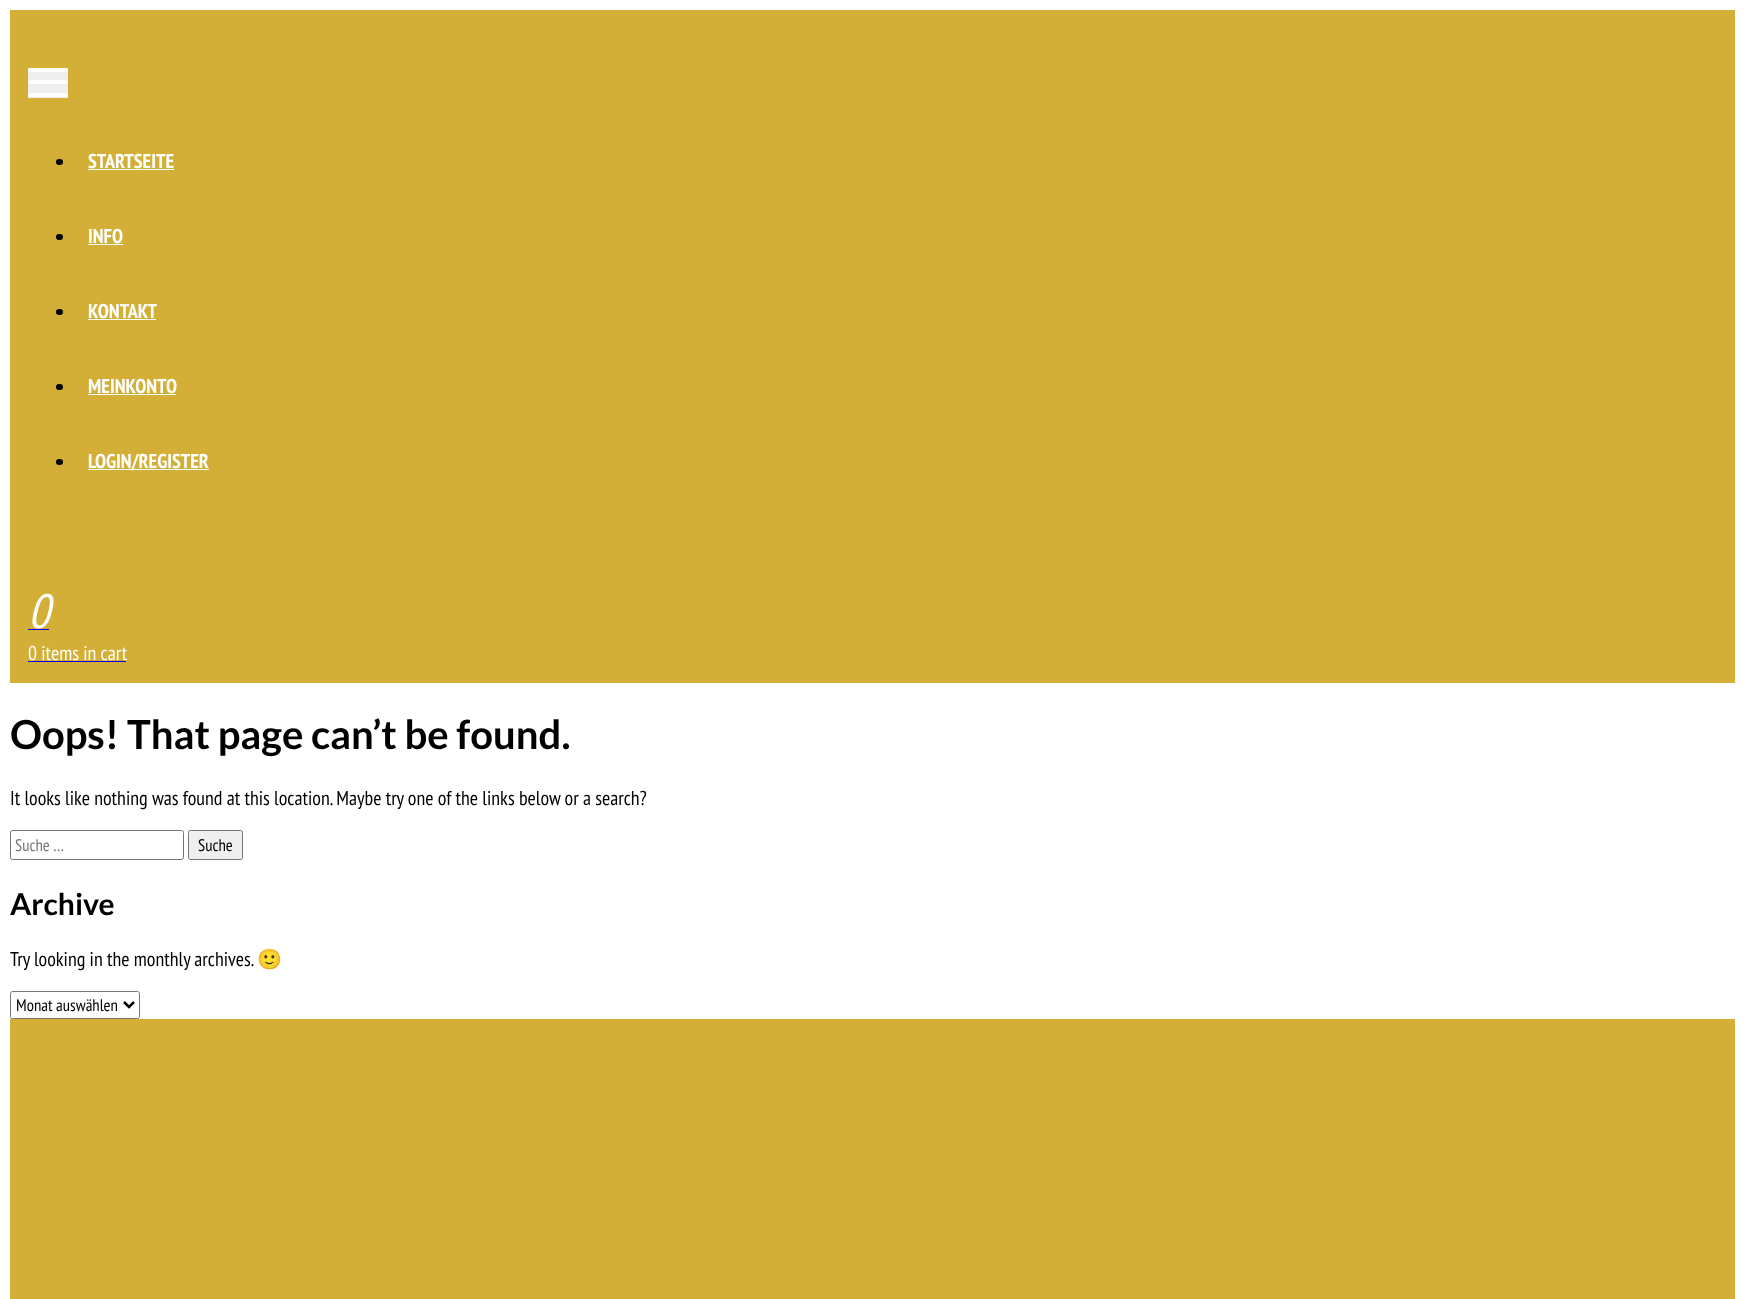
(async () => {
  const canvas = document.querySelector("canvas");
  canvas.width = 1744;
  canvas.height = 1299;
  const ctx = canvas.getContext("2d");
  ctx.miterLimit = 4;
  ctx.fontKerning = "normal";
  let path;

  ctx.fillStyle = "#ffffff";
  ctx.fillRect(0, 0, 1744, 1299);
  ctx.fillStyle = "#d3af37";
  ctx.fillRect(10, 10, 1725, 673);
  ctx.fillStyle = "#efefef";
  ctx.fillRect(28, 68, 40, 30);
  ctx.fillStyle = "#ffffff";
  ctx.beginPath();
  ctx.roundRect(28, 68, 40, 4, 2);
  ctx.fill();
  ctx.beginPath();
  ctx.roundRect(28, 80, 40, 4, 2);
  ctx.fill();
  ctx.beginPath();
  ctx.roundRect(28, 93, 40, 4, 2);
  ctx.fill();
  ctx.fillStyle = "#000000";
  ctx.beginPath();
  ctx.roundRect(56, 159, 7, 6, 3);
  ctx.fill();
  ctx.fillStyle = "#ffffff";
  ctx.fillRect(88, 169, 86, 1);
  ctx.fillStyle = "#000000";
  ctx.beginPath();
  ctx.roundRect(56, 234, 7, 6, 3);
  ctx.fill();
  ctx.fillStyle = "#ffffff";
  ctx.fillRect(88, 244, 35, 1);
  ctx.fillStyle = "#000000";
  ctx.beginPath();
  ctx.roundRect(56, 309, 7, 6, 3);
  ctx.fill();
  ctx.fillStyle = "#ffffff";
  ctx.fillRect(88, 319, 68, 1);
  ctx.fillStyle = "#000000";
  ctx.beginPath();
  ctx.roundRect(56, 384, 7, 6, 3);
  ctx.fill();
  ctx.fillStyle = "#ffffff";
  ctx.fillRect(88, 394, 88, 1);
  ctx.fillStyle = "#000000";
  ctx.beginPath();
  ctx.roundRect(56, 459, 7, 6, 3);
  ctx.fill();
  for (const [x, y, w, h, color] of [
    [88, 469, 121, 1, "#ffffff"],
    [28, 629, 21, 1, "#0000ee"],
    [28, 661, 98, 1, "#0000ee"],
  ]) {
    ctx.fillStyle = color;
    ctx.fillRect(x, y, w, h);
  }
  ctx.beginPath();
  ctx.roundRect(10.5, 830.5, 173, 29, 2);
  ctx.strokeStyle = "#767676";
  ctx.stroke();
  ctx.fillStyle = "#efefef";
  ctx.beginPath();
  ctx.roundRect(188.5, 830.5, 54, 29, 2);
  ctx.fill();
  ctx.stroke();
  ctx.beginPath();
  ctx.roundRect(10.5, 991.5, 129, 27, 2);
  ctx.stroke();
  path = new Path2D("M124 1002L129 1007L134 1002");
  ctx.strokeStyle = "#000000";
  ctx.lineWidth = 2.5;
  ctx.stroke(path);
  ctx.fillStyle = "#d3af37";
  ctx.fillRect(10, 1019, 1725, 280);
  ctx.font = "bold 20px PT Sans Narrow";
  ctx.fillStyle = "#ffffff";
  for (const [text, x, y] of [
    ["STARTSEITE", 88, 168],
    ["INFO", 88, 243],
    ["KONTAKT", 88, 318],
    ["MEINKONTO", 88, 393],
    ["LOGIN/REGISTER", 88, 468],
  ]) {
    ctx.fillText(text, x, y);
  }
  ctx.font = "italic 48px PT Sans Narrow";
  ctx.fillText("0", 28, 628);
  ctx.font = "20px PT Sans Narrow";
  ctx.fillText("0 items in cart", 28, 660);
  ctx.font = "bold 40px Lato";
  ctx.fillStyle = "#000000";
  ctx.fillText("Oops! That page can’t be found.", 10, 749);
  ctx.font = "20px PT Sans Narrow";
  ctx.fillText("It looks like nothing was found at this location. Maybe try one of the links below or a search?", 10, 805);
  ctx.font = "16.75px PT Sans Narrow";
  ctx.fillStyle = "#757575";
  ctx.fillText("Suche …", 15, 851);
  ctx.fillStyle = "#000000";
  ctx.fillText("Suche", 198, 851);
  ctx.font = "bold 30px Lato";
  ctx.fillText("Archive", 10, 915);
  ctx.font = "20px PT Sans Narrow";
  ctx.fillText("Try looking in the monthly archives.", 10, 966);
  ctx.font = "20px Noto Color Emoji";
  ctx.fillText("🙂", 257, 966);
  ctx.font = "16.75px PT Sans Narrow";
  ctx.fillText("Monat auswählen", 16, 1011);
})();
